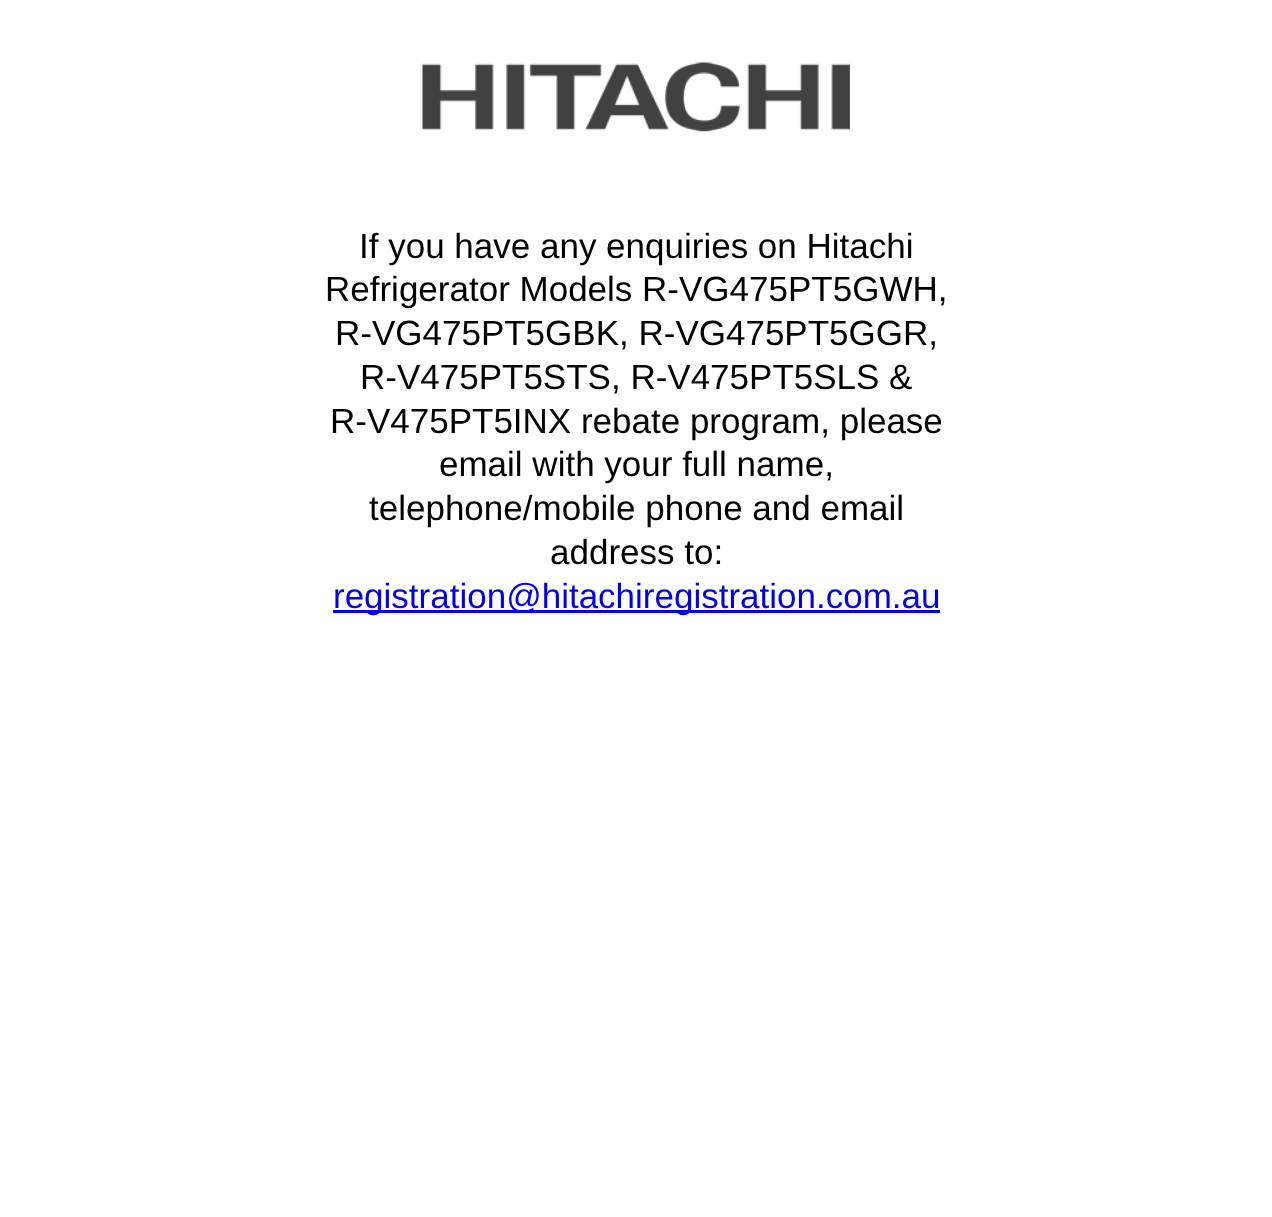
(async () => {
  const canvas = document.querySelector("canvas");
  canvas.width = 1272;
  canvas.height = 1217;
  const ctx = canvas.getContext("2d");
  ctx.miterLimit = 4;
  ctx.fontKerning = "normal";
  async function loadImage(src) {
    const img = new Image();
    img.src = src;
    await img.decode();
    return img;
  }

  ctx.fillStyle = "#ffffff";
  ctx.fillRect(0, 0, 1272, 1217);
  ctx.drawImage(await loadImage("img/1.png"), 422, 62, 428, 70);
  ctx.fillStyle = "#0000ee";
  ctx.fillRect(333, 610, 607, 3);
  ctx.font = "35px Liberation Sans";
  ctx.fillStyle = "#000000";
  for (const [text, x, y] of [
    ["If you have any enquiries on Hitachi", 359, 258],
    ["Refrigerator Models R-VG475PT5GWH,", 325, 301],
    ["R-VG475PT5GBK, R-VG475PT5GGR,", 335, 345],
    ["R-V475PT5STS, R-V475PT5SLS &", 360, 389],
    ["R-V475PT5INX rebate program, please", 330, 433],
    ["email with your full name,", 439, 476],
    ["telephone/mobile phone and email", 369, 520],
    ["address to:", 550, 564],
  ]) {
    ctx.fillText(text, x, y);
  }
  ctx.fillStyle = "#0000ee";
  ctx.fillText("registration@hitachiregistration.com.au", 333, 608);
})();
